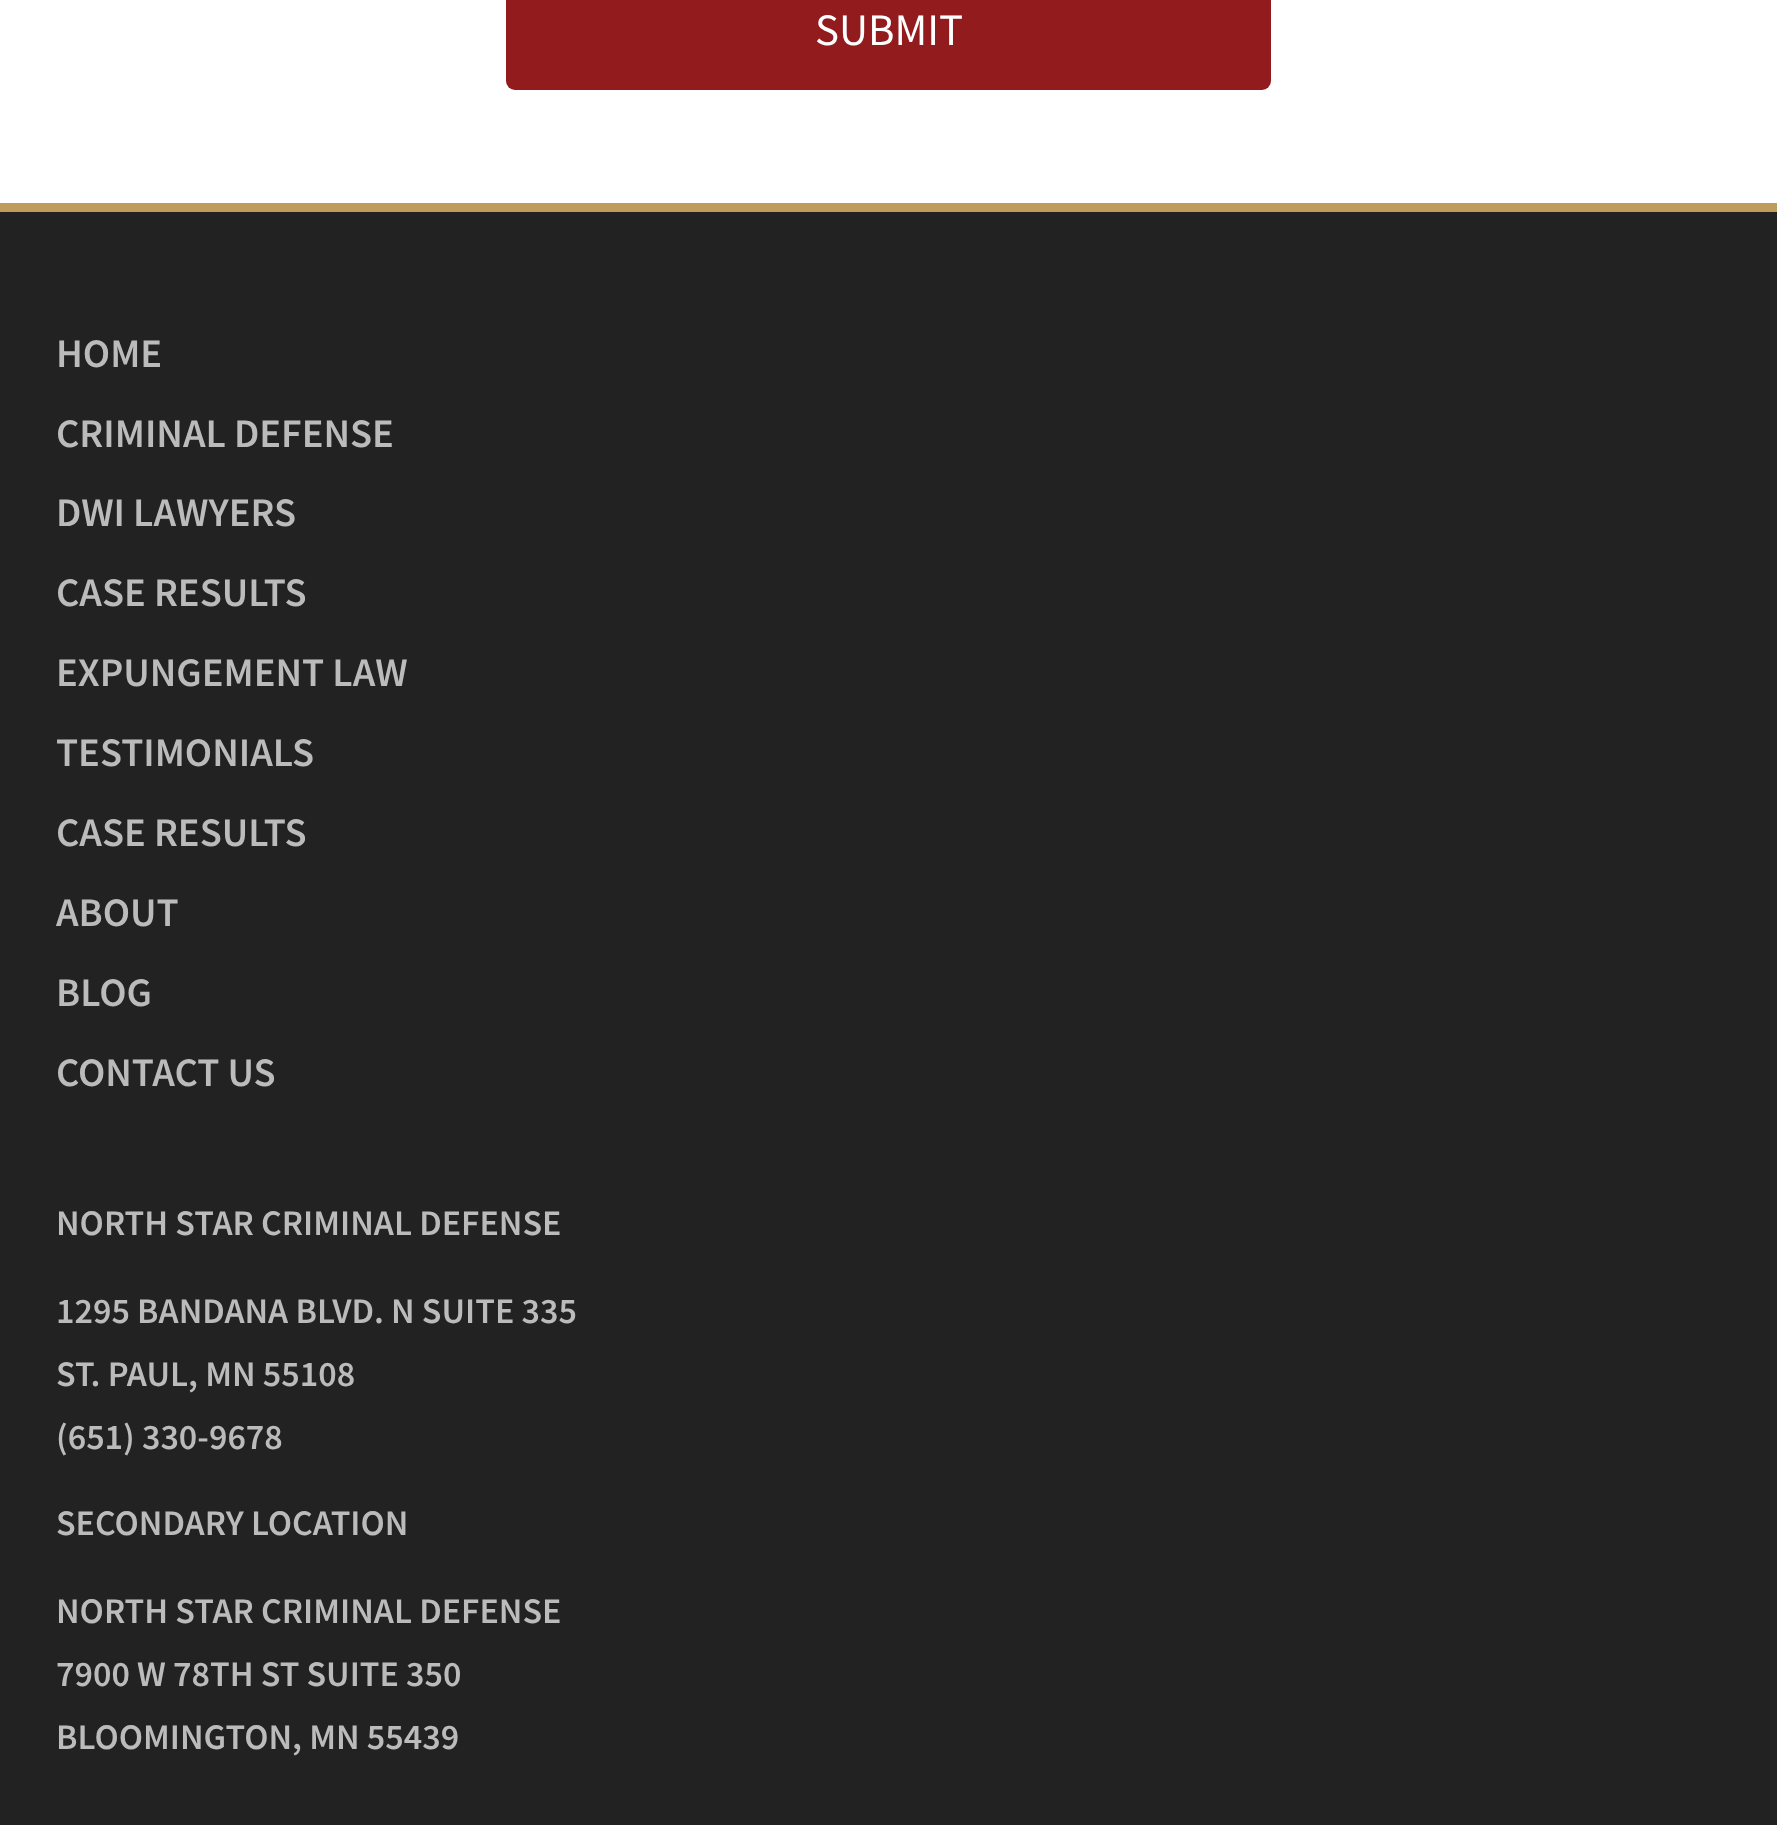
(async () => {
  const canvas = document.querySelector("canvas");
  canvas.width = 1777;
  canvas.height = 1825;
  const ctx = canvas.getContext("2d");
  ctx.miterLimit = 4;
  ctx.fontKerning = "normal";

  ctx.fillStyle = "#ffffff";
  ctx.fillRect(0, 0, 1777, 1825);
  ctx.fillStyle = "#921b1d";
  ctx.beginPath();
  ctx.roundRect(506, -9, 765, 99, 9);
  ctx.fill();
  ctx.fillStyle = "#222222";
  ctx.fillRect(0, 212, 1777, 1613);
  ctx.fillStyle = "#bf9c5e";
  ctx.fillRect(0, 203, 1777, 9);
  ctx.font = "45px Source Sans Pro";
  ctx.fillStyle = "#ffffff";
  ctx.fillText("SUBMIT", 815, 45);
  ctx.font = "600 40.5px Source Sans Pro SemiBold";
  ctx.fillStyle = "#bbbbbb";
  for (const [text, x, y] of [
    ["HOME", 56, 367],
    ["CRIMINAL DEFENSE", 56, 447],
    ["DWI LAWYERS", 56, 526],
    ["CASE RESULTS", 56, 606],
    ["EXPUNGEMENT LAW", 56, 686],
    ["TESTIMONIALS", 56, 766],
    ["CASE RESULTS", 56, 846],
    ["ABOUT", 56, 926],
    ["BLOG", 56, 1006],
    ["CONTACT US", 56, 1086],
  ]) {
    ctx.fillText(text, x, y);
  }
  ctx.font = "600 36px Source Sans Pro SemiBold";
  for (const [text, x, y] of [
    ["NORTH STAR CRIMINAL DEFENSE", 56, 1235],
    ["1295 BANDANA BLVD. N SUITE 335", 56, 1323],
    ["ST. PAUL, MN 55108", 56, 1386],
    ["(651) 330-9678", 56, 1449],
    ["SECONDARY LOCATION", 56, 1535],
    ["NORTH STAR CRIMINAL DEFENSE", 56, 1623],
    ["7900 W 78TH ST SUITE 350", 56, 1686],
    ["BLOOMINGTON, MN 55439", 56, 1749],
  ]) {
    ctx.fillText(text, x, y);
  }
})();
